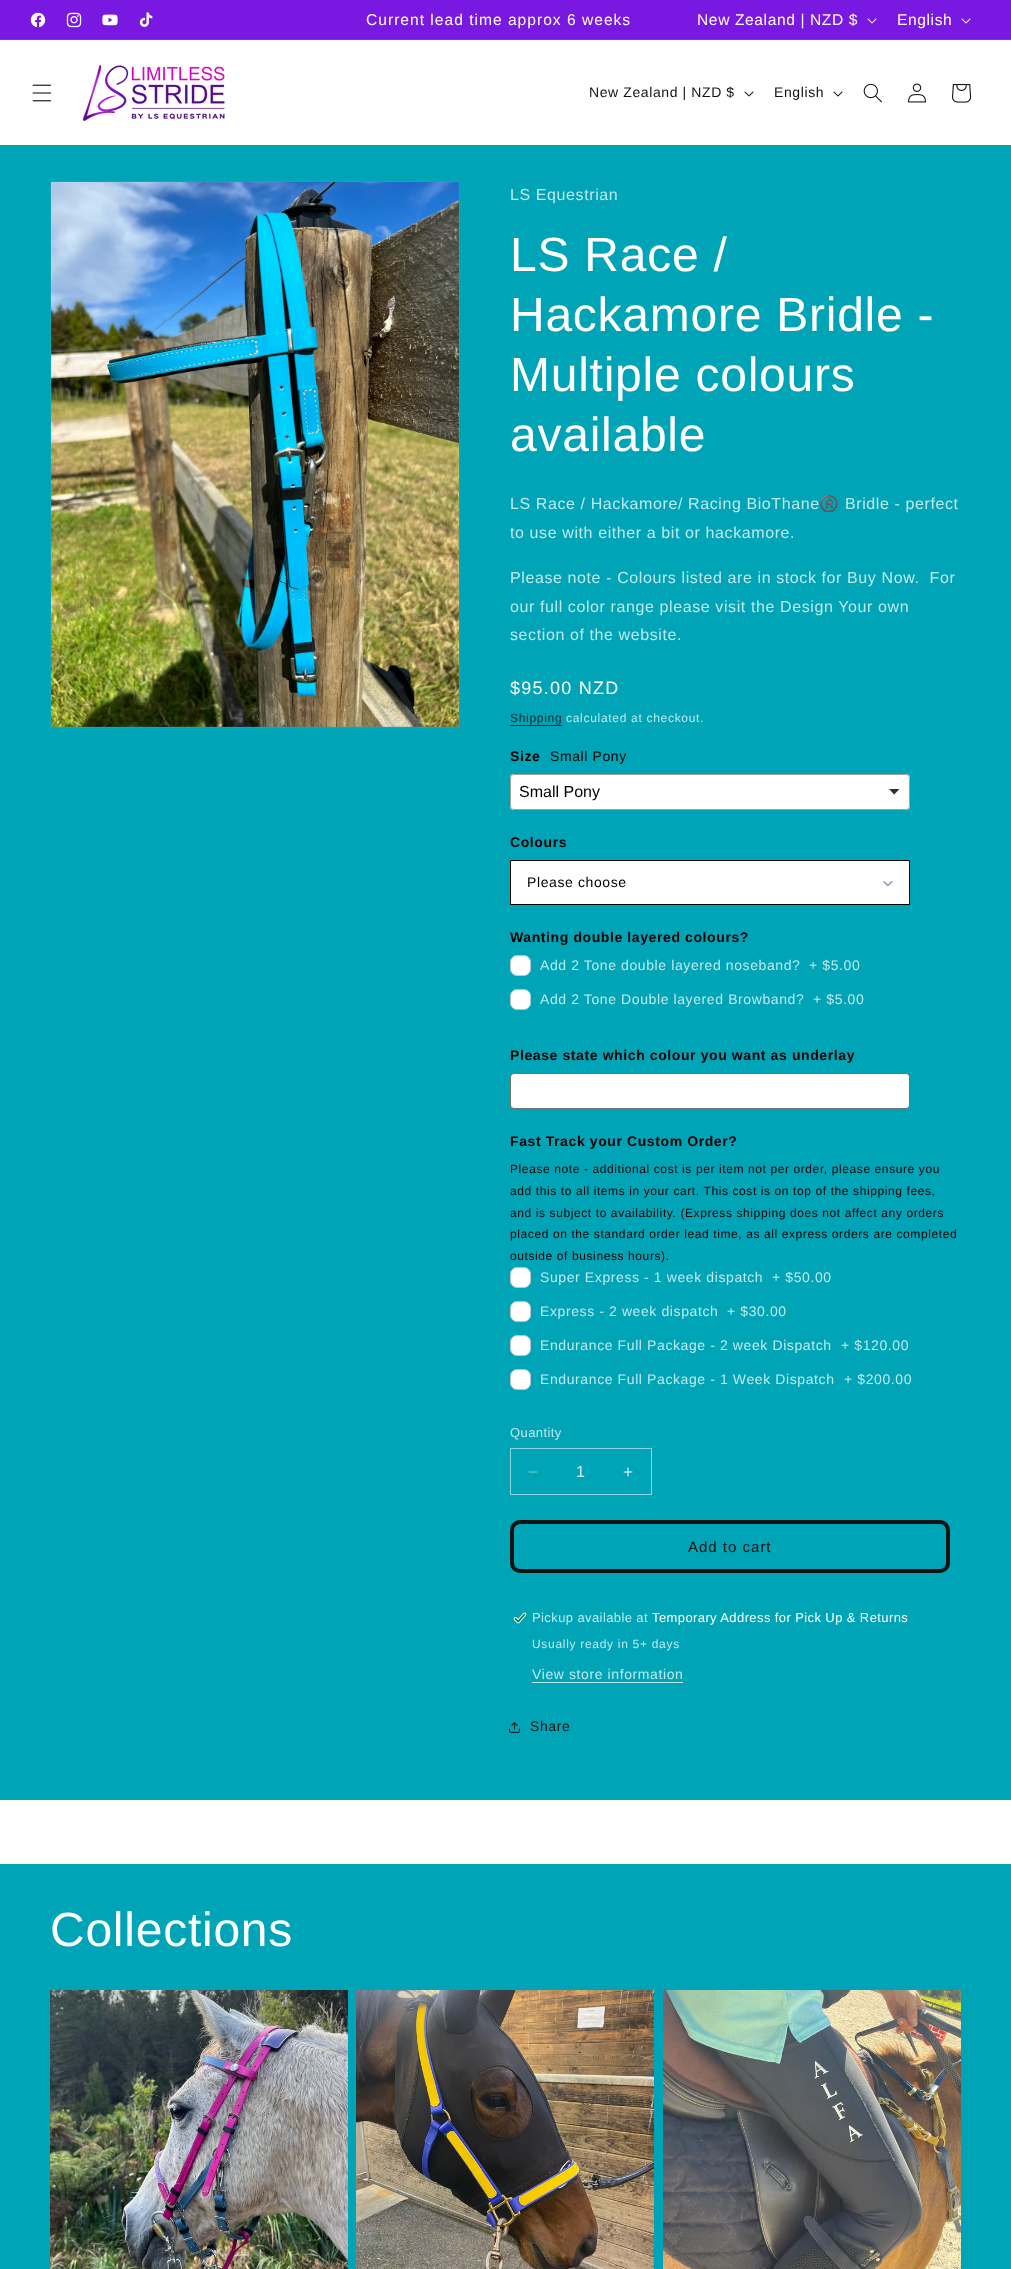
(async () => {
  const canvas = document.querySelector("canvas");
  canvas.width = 1011;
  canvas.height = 2269;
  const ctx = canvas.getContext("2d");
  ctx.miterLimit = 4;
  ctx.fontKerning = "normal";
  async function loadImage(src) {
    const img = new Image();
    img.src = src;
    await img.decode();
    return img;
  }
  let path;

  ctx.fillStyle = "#00a4b7";
  ctx.fillRect(0, 0, 1011, 2269);
  ctx.fillStyle = "#7918e0";
  ctx.fillRect(0, 0, 1011, 39);
  ctx.fillStyle = "#842ae2";
  ctx.fillRect(0, 39, 1011, 1);
  ctx.drawImage(await loadImage("img/1.png"), 30, 12, 16, 16);
  ctx.drawImage(await loadImage("img/2.png"), 66, 12, 16, 16);
  ctx.drawImage(await loadImage("img/3.png"), 102, 14, 16, 12);
  ctx.drawImage(await loadImage("img/4.png"), 139, 12, 14, 15);
  ctx.drawImage(await loadImage("img/5.png"), 867, 18, 10, 6);
  ctx.drawImage(await loadImage("img/5.png"), 961, 18, 10, 6);
  ctx.fillStyle = "#ffffff";
  ctx.fillRect(0, 40, 1011, 105);
  ctx.drawImage(await loadImage("img/6.png"), 32, 84, 20, 18);
  ctx.drawImage(await loadImage("img/7.png"), 82, 65, 143, 56);
  ctx.drawImage(await loadImage("img/8.png"), 744, 91, 10, 6);
  ctx.drawImage(await loadImage("img/8.png"), 833, 91, 10, 6);
  ctx.drawImage(await loadImage("img/9.png"), 863, 83, 19, 20);
  ctx.drawImage(await loadImage("img/10.png"), 908, 83, 18, 20);
  ctx.drawImage(await loadImage("img/11.png"), 952, 84, 20, 19);
  ctx.strokeStyle = "#0da9bb";
  ctx.strokeRect(50.5, 181.5, 409, 546);
  ctx.drawImage(await loadImage("img/12.png"), 51, 182, 408, 545);
  ctx.fillStyle = "#0f282b";
  ctx.fillRect(510, 725, 52, 1);
  ctx.fillStyle = "#ffffff";
  ctx.beginPath();
  ctx.roundRect(510, 774, 400, 36, 4);
  ctx.fill();
  ctx.drawImage(await loadImage("img/13.png"), 889, 789, 11, 6);
  ctx.beginPath();
  ctx.roundRect(510.5, 774.5, 399, 35, 3.5);
  ctx.strokeStyle = "#a0a0a0";
  ctx.stroke();
  ctx.beginPath();
  ctx.rect(510.5, 860.5, 399, 44);
  ctx.fill();
  ctx.strokeStyle = "#000000";
  ctx.stroke();
  ctx.fillStyle = "#99a3ba";
  path = new Path2D("M885 881.5L886.5 883C887 883.5 889.5 885 888.5 886H887L885 884C885 883.5 882 882 883.5 881Z");
  ctx.fill(path);
  path = new Path2D("M887.5 885L891 881C891.5 881 893 881 892.5 882C892.5 882 887.5 888.5 887 885.5Z");
  ctx.fill(path);
  ctx.fillStyle = "#ffffff";
  ctx.beginPath();
  ctx.roundRect(510.5, 955.5, 20, 20, 6.5);
  ctx.fill();
  ctx.strokeStyle = "#bbc1e1";
  ctx.stroke();
  ctx.beginPath();
  ctx.roundRect(510.5, 989.5, 20, 20, 6.5);
  ctx.fill();
  ctx.stroke();
  ctx.beginPath();
  ctx.roundRect(510.5, 1073.5, 399, 35, 3.5);
  ctx.fill();
  ctx.strokeStyle = "#717171";
  ctx.stroke();
  ctx.beginPath();
  ctx.roundRect(510.5, 1267.5, 20, 20, 6.5);
  ctx.fill();
  ctx.strokeStyle = "#bbc1e1";
  ctx.stroke();
  ctx.beginPath();
  ctx.roundRect(510.5, 1301.5, 20, 20, 6.5);
  ctx.fill();
  ctx.stroke();
  ctx.beginPath();
  ctx.roundRect(510.5, 1335.5, 20, 20, 6.5);
  ctx.fill();
  ctx.stroke();
  ctx.beginPath();
  ctx.roundRect(510.5, 1369.5, 20, 20, 6.5);
  ctx.fill();
  ctx.stroke();
  ctx.drawImage(await loadImage("img/14.png"), 528, 1471, 10, 2);
  ctx.drawImage(await loadImage("img/15.png"), 623, 1467, 10, 10);
  ctx.strokeStyle = "#8cd6df";
  ctx.strokeRect(510.5, 1448.5, 141, 46);
  ctx.beginPath();
  ctx.roundRect(512, 1522, 436, 49, 8);
  ctx.strokeStyle = "#121212";
  ctx.lineWidth = 4;
  ctx.stroke();
  ctx.drawImage(await loadImage("img/16.png"), 513, 1612, 14, 12);
  ctx.fillStyle = "#bfe8ed";
  ctx.fillRect(532, 1682, 151, 1);
  ctx.drawImage(await loadImage("img/17.png"), 509, 1722, 11, 11);
  ctx.fillStyle = "#ffffff";
  ctx.fillRect(0, 1800, 1011, 64);
  ctx.drawImage(await loadImage("img/18.png"), 50, 1990, 298, 279);
  ctx.drawImage(await loadImage("img/19.png"), 356, 1990, 298, 279);
  ctx.drawImage(await loadImage("img/20.png"), 663, 1990, 298, 279);
  ctx.letterSpacing = "1px";
  ctx.font = "15.6px Liberation Sans";
  ctx.fillText("Current lead time approx 6 weeks", 366, 25);
  ctx.letterSpacing = "0.6px";
  ctx.fillText("New Zealand | NZD $", 697, 25);
  ctx.fillText("English", 897, 25);
  ctx.font = "14px Liberation Sans";
  ctx.fillStyle = "#121212";
  ctx.fillText("New Zealand | NZD $", 589, 97);
  ctx.fillText("English", 774, 97);
  ctx.font = "16px Liberation Sans";
  ctx.fillStyle = "#bfe8ed";
  ctx.fillText("LS Equestrian", 510, 200);
  ctx.letterSpacing = "0.75px";
  ctx.font = "48px Liberation Sans";
  ctx.fillStyle = "#ffffff";
  for (const [text, x, y] of [
    ["LS Race /", 510, 271],
    ["Hackamore Bridle -", 510, 331],
    ["Multiple colours", 510, 391],
    ["available", 510, 451],
  ]) {
    ctx.fillText(text, x, y);
  }
  ctx.letterSpacing = "0.6px";
  ctx.font = "16px Liberation Sans";
  ctx.fillStyle = "#bfe8ed";
  ctx.fillText("LS Race / Hackamore/ Racing BioThane", 510, 509);
  ctx.font = "16px Noto Color Emoji";
  ctx.fillText("®️", 819, 509);
  ctx.font = "16px Liberation Sans";
  for (const [text, x, y] of [
    ["Bridle - perfect", 845, 509],
    ["to use with either a bit or hackamore.", 510, 538],
    ["Please note - Colours listed are in stock for Buy Now.  For", 510, 583],
    ["our full color range please visit the Design Your own", 510, 612],
    ["section of the website.", 510, 640],
  ]) {
    ctx.fillText(text, x, y);
  }
  ctx.letterSpacing = "1.25px";
  ctx.font = "18px Liberation Sans";
  ctx.fillStyle = "#ffffff";
  ctx.fillText("$95.00 NZD", 510, 694);
  ctx.letterSpacing = "0.7px";
  ctx.font = "12px Liberation Sans";
  ctx.fillStyle = "#0f282b";
  ctx.fillText("Shipping", 510, 722);
  ctx.fillStyle = "#bfe8ed";
  ctx.fillText("calculated at checkout.", 566, 722);
  ctx.letterSpacing = "0.6px";
  ctx.font = "bold 14px Liberation Sans";
  ctx.fillStyle = "#000000";
  ctx.fillText("Size", 510, 761);
  ctx.font = "14px Liberation Sans";
  ctx.fillText("Small Pony", 550, 761);
  ctx.letterSpacing = "0px";
  ctx.font = "16px Liberation Sans";
  ctx.fillText("Small Pony", 519, 797);
  ctx.letterSpacing = "0.6px";
  ctx.font = "bold 14px Liberation Sans";
  ctx.fillText("Colours", 510, 847);
  ctx.font = "14px Liberation Sans";
  ctx.fillText("Please choose", 527, 887);
  ctx.font = "bold 14px Liberation Sans";
  ctx.fillText("Wanting double layered colours?", 510, 942);
  ctx.font = "14px Liberation Sans";
  ctx.fillStyle = "#bfe8ed";
  for (const [text, x, y] of [
    ["Add 2 Tone double layered noseband?", 540, 970],
    ["+ $5.00", 809, 970],
    ["Add 2 Tone Double layered Browband?", 540, 1004],
    ["+ $5.00", 813, 1004],
  ]) {
    ctx.fillText(text, x, y);
  }
  ctx.font = "bold 14px Liberation Sans";
  ctx.fillStyle = "#000000";
  ctx.fillText("Please state which colour you want as underlay", 510, 1060);
  ctx.fillText("Fast Track your Custom Order?", 510, 1146);
  ctx.font = "12px Liberation Sans";
  for (const [text, x, y] of [
    ["Please note - additional cost is per item not per order, please ensure you", 510, 1173],
    ["add this to all items in your cart. This cost is on top of the shipping fees,", 510, 1195],
    ["and is subject to availability. (Express shipping does not affect any orders", 510, 1217],
    ["placed on the standard order lead time, as all express orders are completed", 510, 1238],
    ["outside of business hours).", 510, 1260],
  ]) {
    ctx.fillText(text, x, y);
  }
  ctx.font = "14px Liberation Sans";
  ctx.fillStyle = "#bfe8ed";
  for (const [text, x, y] of [
    ["Super Express - 1 week dispatch", 540, 1282],
    ["+ $50.00", 772, 1282],
    ["Express - 2 week dispatch", 540, 1316],
    ["+ $30.00", 727, 1316],
    ["Endurance Full Package - 2 week Dispatch", 540, 1350],
    ["+ $120.00", 841, 1350],
    ["Endurance Full Package - 1 Week Dispatch", 540, 1384],
    ["+ $200.00", 844, 1384],
  ]) {
    ctx.fillText(text, x, y);
  }
  ctx.letterSpacing = "0.4px";
  ctx.font = "13px Liberation Sans";
  ctx.fillText("Quantity", 510, 1437);
  ctx.letterSpacing = "0px";
  ctx.font = "16px Liberation Sans";
  ctx.fillStyle = "#d9f1f4";
  ctx.fillText("1", 576, 1477);
  ctx.letterSpacing = "1px";
  ctx.font = "15px Liberation Sans";
  ctx.fillStyle = "#121212";
  ctx.fillText("Add to cart", 688, 1552);
  ctx.letterSpacing = "0.4px";
  ctx.font = "13px Liberation Sans";
  ctx.fillStyle = "#bfe8ed";
  ctx.fillText("Pickup available at", 532, 1622);
  ctx.fillStyle = "#ffffff";
  ctx.fillText("Temporary Address for Pick Up & Returns", 652, 1622);
  ctx.letterSpacing = "0.7px";
  ctx.font = "12px Liberation Sans";
  ctx.fillStyle = "#bfe8ed";
  ctx.fillText("Usually ready in 5+ days", 532, 1648);
  ctx.letterSpacing = "0.6px";
  ctx.font = "14px Liberation Sans";
  ctx.fillText("View store information", 532, 1679);
  ctx.fillStyle = "#121212";
  ctx.fillText("Share", 530, 1731);
  ctx.letterSpacing = "0.75px";
  ctx.font = "48px Liberation Sans";
  ctx.fillStyle = "#ffffff";
  ctx.fillText("Collections", 50, 1946);
})();
